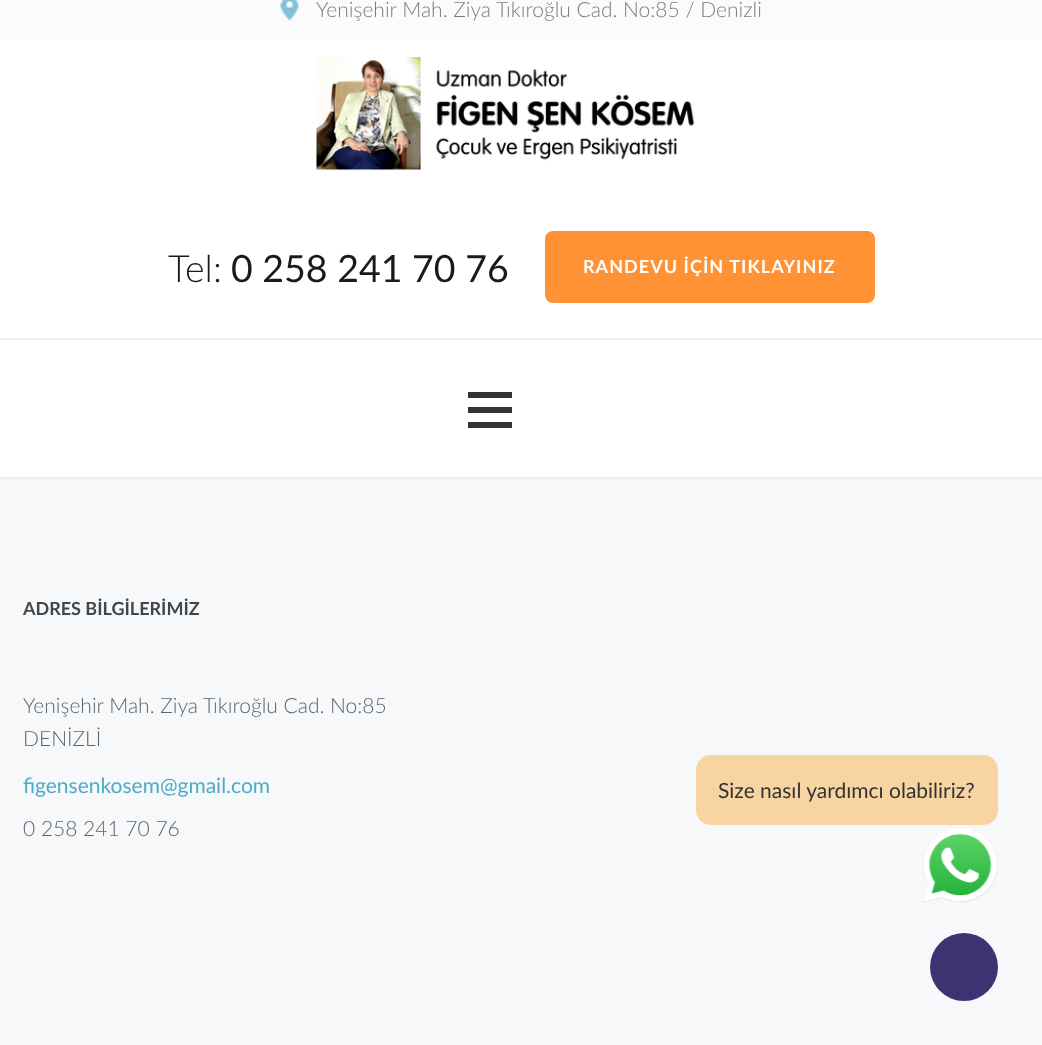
(async () => {
  const canvas = document.querySelector("canvas");
  canvas.width = 1042;
  canvas.height = 1045;
  const ctx = canvas.getContext("2d");
  ctx.miterLimit = 4;
  ctx.fontKerning = "normal";
  async function loadImage(src) {
    const img = new Image();
    img.src = src;
    await img.decode();
    return img;
  }

  ctx.fillStyle = "#ffffff";
  ctx.fillRect(0, 0, 1042, 1045);
  ctx.fillStyle = "#fbfbfb";
  ctx.fillRect(0, 0, 1042, 39);
  ctx.drawImage(await loadImage("img/1.png"), 280, 0, 19, 21);
  ctx.drawImage(await loadImage("img/2.png"), 316, 57, 379, 113);
  ctx.fillStyle = "#ff9234";
  ctx.beginPath();
  ctx.roundRect(545, 231, 330, 72, 8);
  ctx.fill();
  for (const [x, y, w, h, color] of [
    [0, 338, 1042, 2, "#eceff1"],
    [0, 477, 1042, 2, "#eceff1"],
    [468, 407, 44, 6, "#303638"],
    [468, 392, 44, 6, "#303638"],
    [468, 422, 44, 6, "#303638"],
    [0, 479, 1042, 566, "#f6f8f9"],
  ]) {
    ctx.fillStyle = color;
    ctx.fillRect(x, y, w, h);
  }
  ctx.fillStyle = "#3d3272";
  ctx.beginPath();
  ctx.arc(964, 967, 34, 0, Math.PI * 2);
  ctx.fill();
  ctx.fillStyle = "#f7d4a1";
  ctx.beginPath();
  ctx.roundRect(696, 755, 302, 70, 15);
  ctx.fill();
  ctx.drawImage(await loadImage("img/3.png"), 922, 828, 76, 75);
  ctx.font = "300 21px Lato";
  ctx.fillStyle = "#7a7d81";
  ctx.fillText("Yenişehir Mah. Ziya Tıkıroğlu Cad. No:85 / Denizli", 316, 17);
  ctx.font = "300 37.5px Lato";
  ctx.fillStyle = "#1a1a1a";
  ctx.fillText("Tel:", 168, 282);
  ctx.font = "37.5px Lato";
  ctx.fillText("0 258 241 70 76", 231, 282);
  ctx.letterSpacing = "1.05px";
  ctx.font = "bold 18px Lato";
  ctx.fillStyle = "#ffffff";
  ctx.fillText("RANDEVU İÇİN TIKLAYINIZ", 583, 273);
  ctx.letterSpacing = "0px";
  ctx.fillStyle = "#42474c";
  ctx.fillText("ADRES BİLGİLERİMİZ", 23, 615);
  ctx.font = "300 21px Lato";
  ctx.fillStyle = "#5c656d";
  ctx.fillText("Yenişehir Mah. Ziya Tıkıroğlu Cad. No:85", 23, 713);
  ctx.fillText("DENİZLİ", 23, 746);
  ctx.font = "21px Lato";
  ctx.fillStyle = "#4eaac8";
  ctx.fillText("figensenkosem@gmail.com", 23, 793);
  ctx.font = "300 21px Lato";
  ctx.fillStyle = "#5c656d";
  ctx.fillText("0 258 241 70 76", 23, 836);
  ctx.font = "21px Lato";
  ctx.fillStyle = "#333333";
  ctx.fillText("Size nasıl yardımcı olabiliriz?", 718, 798);
})();
